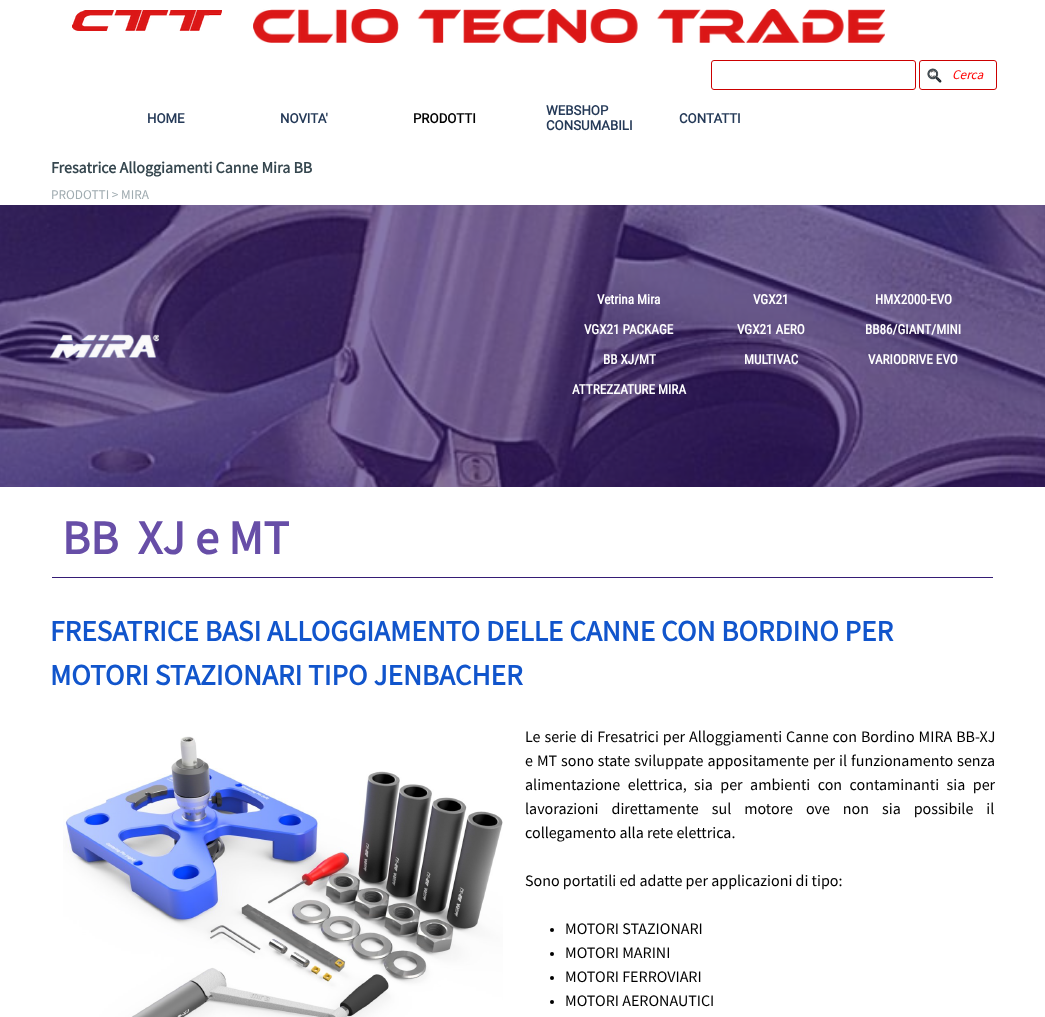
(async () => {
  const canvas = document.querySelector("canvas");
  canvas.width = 1045;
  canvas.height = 1017;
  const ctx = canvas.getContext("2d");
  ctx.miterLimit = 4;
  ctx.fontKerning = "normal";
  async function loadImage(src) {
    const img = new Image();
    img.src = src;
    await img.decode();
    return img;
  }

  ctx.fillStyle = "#ffffff";
  ctx.fillRect(0, 0, 1045, 1017);
  ctx.drawImage(await loadImage("img/1.png"), 72, 10, 150, 21);
  ctx.drawImage(await loadImage("img/2.png"), 253, 9, 632, 34);
  ctx.beginPath();
  ctx.roundRect(711.5, 60.5, 204, 29, 2.5);
  ctx.strokeStyle = "#cc0000";
  ctx.stroke();
  ctx.drawImage(await loadImage("img/3.png"), 927, 68, 15, 15);
  ctx.beginPath();
  ctx.roundRect(919.5, 60.5, 77, 29, 2.5);
  ctx.stroke();
  ctx.drawImage(await loadImage("img/4.png"), 0, 205, 1045, 282);
  ctx.drawImage(await loadImage("img/5.png"), 49, 334, 110, 24);
  ctx.fillStyle = "#351c75";
  ctx.fillRect(52, 577, 941, 1);
  ctx.drawImage(await loadImage("img/6.png"), 63, 736, 440, 281);
  ctx.fillStyle = "#000000";
  ctx.beginPath();
  ctx.arc(552, 930, 2, 0, Math.PI * 2);
  ctx.fill();
  ctx.beginPath();
  ctx.arc(552, 954, 2, 0, Math.PI * 2);
  ctx.fill();
  ctx.beginPath();
  ctx.arc(552, 978, 2, 0, Math.PI * 2);
  ctx.fill();
  ctx.beginPath();
  ctx.arc(552, 1002, 2, 0, Math.PI * 2);
  ctx.fill();
  ctx.font = "italic 13.25px Source Sans Pro";
  ctx.fillStyle = "#ff0000";
  ctx.fillText("Cerca", 952, 79);
  ctx.font = "bold 13.25px Roboto";
  ctx.fillStyle = "#253a58";
  ctx.fillText("HOME", 147, 123);
  ctx.fillText("NOVITA'", 280, 123);
  ctx.fillStyle = "#000000";
  ctx.fillText("PRODOTTI", 413, 123);
  ctx.fillStyle = "#253a58";
  for (const [text, x, y] of [
    ["WEBSHOP", 546, 115],
    ["CONSUMABILI", 546, 130],
    ["CONTATTI", 679, 123],
  ]) {
    ctx.fillText(text, x, y);
  }
  ctx.font = "bold 16px Source Sans Pro";
  ctx.fillStyle = "#36474f";
  ctx.fillText("Fresatrice Alloggiamenti Canne Mira BB", 51, 173);
  ctx.font = "13.25px Source Sans Pro";
  ctx.fillStyle = "#9fabb0";
  ctx.fillText("PRODOTTI > MIRA", 51, 199);
  ctx.font = "bold 13.25px Roboto Condensed";
  ctx.fillStyle = "#ffffff";
  for (const [text, x, y] of [
    ["Vetrina Mira", 597, 304],
    ["VGX21", 753, 304],
    ["HMX2000-EVO", 875, 304],
    ["VGX21 PACKAGE", 584, 334],
    ["VGX21 AERO", 737, 334],
    ["BB86/GIANT/MINI", 865, 334],
    ["BB XJ/MT", 603, 364],
    ["MULTIVAC", 744, 364],
    ["VARIODRIVE EVO", 868, 364],
    ["ATTREZZATURE MIRA", 572, 394],
  ]) {
    ctx.fillText(text, x, y);
  }
  ctx.font = "bold 48px Source Sans Pro";
  ctx.fillStyle = "#674ea7";
  ctx.fillText("BB  XJ e MT", 62, 554);
  ctx.font = "bold 29.3px Source Sans Pro";
  ctx.fillStyle = "#1155cc";
  ctx.fillText("FRESATRICE BASI ALLOGGIAMENTO DELLE CANNE CON BORDINO PER", 50, 641);
  ctx.fillText("MOTORI STAZIONARI TIPO JENBACHER", 50, 685);
  ctx.wordSpacing = "0.75px";
  ctx.font = "16px Source Sans Pro";
  ctx.fillStyle = "#000000";
  ctx.fillText("Le serie di Fresatrici per Alloggiamenti Canne con Bordino MIRA BB-XJ", 525, 742);
  ctx.fillText("e MT sono state sviluppate appositamente per il funzionamento senza", 525, 766);
  ctx.wordSpacing = "4.25px";
  ctx.fillText("alimentazione elettrica, sia per ambienti con contaminanti sia per", 525, 790);
  ctx.wordSpacing = "9.75px";
  ctx.fillText("lavorazioni direttamente sul motore ove non sia possibile il", 525, 814);
  ctx.wordSpacing = "0px";
  for (const [text, x, y] of [
    ["collegamento alla rete elettrica.", 525, 838],
    ["Sono portatili ed adatte per applicazioni di tipo:", 525, 886],
    ["MOTORI STAZIONARI", 565, 934],
    ["MOTORI MARINI", 565, 958],
    ["MOTORI FERROVIARI", 565, 982],
    ["MOTORI AERONAUTICI", 565, 1006],
  ]) {
    ctx.fillText(text, x, y);
  }
})();
